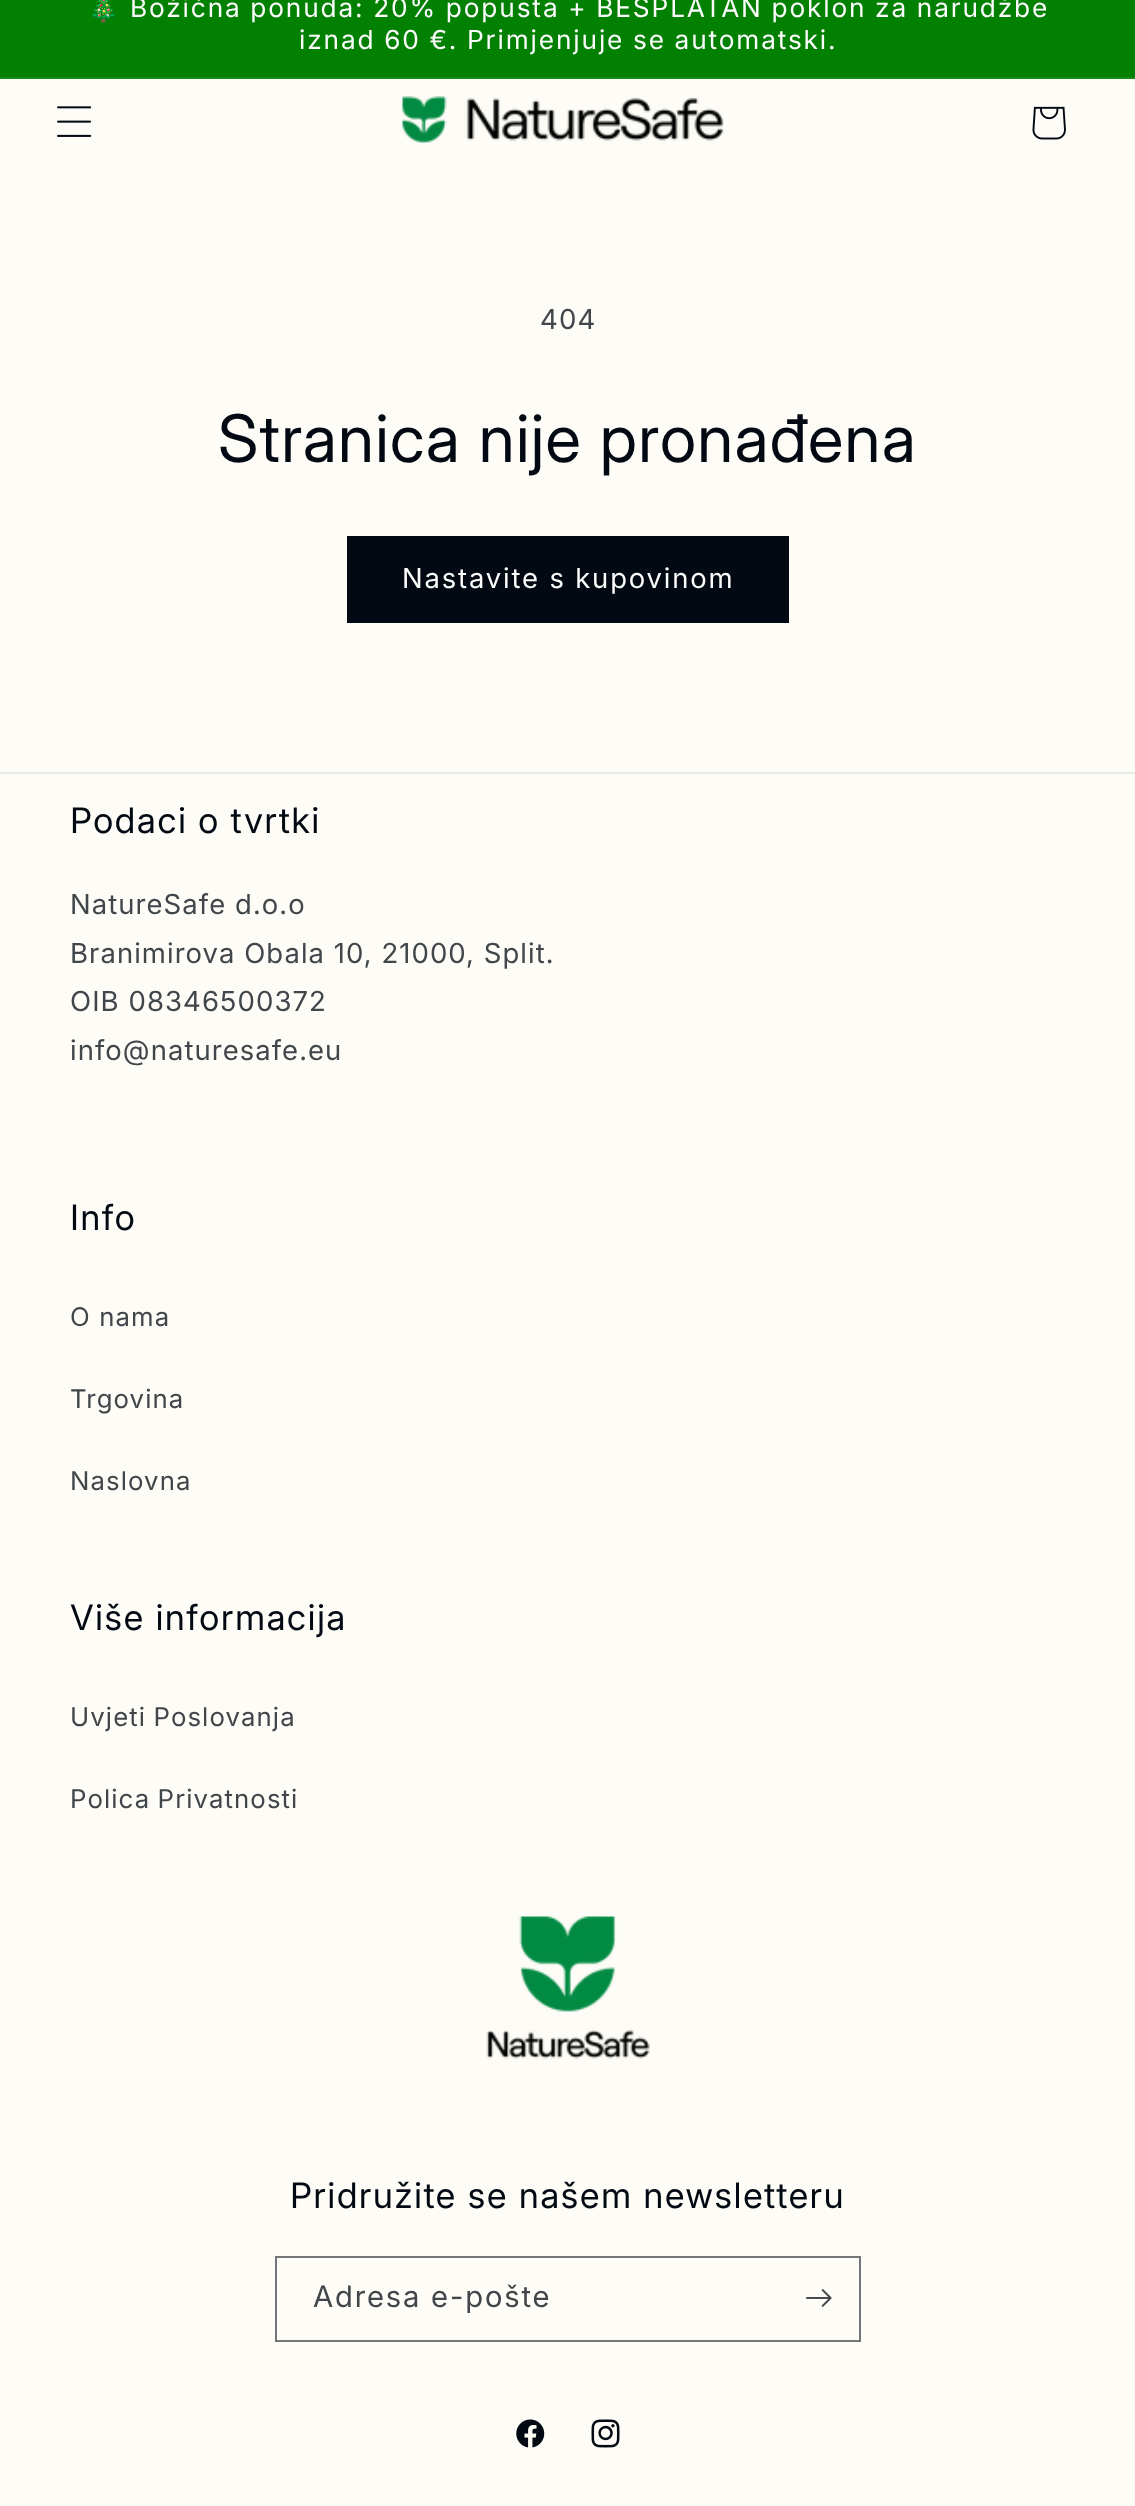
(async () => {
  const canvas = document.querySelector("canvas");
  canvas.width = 1135;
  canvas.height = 2506;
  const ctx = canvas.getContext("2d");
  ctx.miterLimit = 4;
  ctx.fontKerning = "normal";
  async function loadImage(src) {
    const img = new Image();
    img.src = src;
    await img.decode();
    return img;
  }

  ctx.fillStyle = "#fdfcf7";
  ctx.fillRect(0, 0, 1135, 2506);
  ctx.fillStyle = "#028001";
  ctx.fillRect(0, 0, 1135, 77);
  ctx.fillStyle = "#168a15";
  ctx.fillRect(0, 77, 1135, 2);
  ctx.drawImage(await loadImage("img/1.png"), 57, 106, 35, 31);
  ctx.drawImage(await loadImage("img/2.png"), 402, 96, 322, 48);
  ctx.drawImage(await loadImage("img/3.png"), 1032, 106, 34, 34);
  ctx.fillStyle = "#020912";
  ctx.fillRect(347, 536, 442, 87);
  ctx.fillStyle = "#e9e9e5";
  ctx.fillRect(0, 772, 1135, 2);
  ctx.drawImage(await loadImage("img/4.png"), 486, 1916, 164, 143);
  ctx.strokeStyle = "#737679";
  ctx.lineWidth = 2;
  ctx.strokeRect(276, 2257, 584, 84);
  ctx.drawImage(await loadImage("img/5.png"), 806, 2289, 26, 18);
  ctx.drawImage(await loadImage("img/6.png"), 516, 2419, 29, 29);
  ctx.drawImage(await loadImage("img/7.png"), 591, 2419, 29, 29);
  ctx.letterSpacing = "1.85px";
  ctx.font = "26.25px Noto Color Emoji";
  ctx.fillStyle = "#fcfcfc";
  ctx.fillText("🎄", 87, 17);
  ctx.wordSpacing = "-0.5px";
  ctx.font = "26.25px Inter";
  ctx.fillText("Božićna ponuda: 20% popusta + BESPLATAN poklon za narudžbe", 130, 17);
  ctx.fillText("iznad 60 €. Primjenjuje se automatski.", 299, 49);
  ctx.letterSpacing = "1.1px";
  ctx.wordSpacing = "0px";
  ctx.font = "27.6px Inter";
  ctx.fillStyle = "#41464b";
  ctx.fillText("404", 540, 329);
  ctx.letterSpacing = "1.3px";
  ctx.font = "65.6px 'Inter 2'";
  ctx.fillStyle = "#020912";
  ctx.fillText("Stranica nije pronađena", 218, 462);
  ctx.letterSpacing = "1.85px";
  ctx.font = "27.6px 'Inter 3'";
  ctx.fillStyle = "#fcfcfc";
  ctx.fillText("Nastavite s kupovinom", 402, 588);
  ctx.letterSpacing = "1.3px";
  ctx.font = "35px 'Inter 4'";
  ctx.fillStyle = "#020912";
  ctx.fillText("Podaci o tvrtki", 70, 833);
  ctx.letterSpacing = "1.1px";
  ctx.font = "27.6px 'Inter 3'";
  ctx.fillStyle = "#41464b";
  for (const [text, x, y] of [
    ["NatureSafe d.o.o", 70, 914],
    ["Branimirova Obala 10, 21000, Split.", 70, 963],
    ["OIB 08346500372", 70, 1011],
    ["info@naturesafe.eu", 70, 1060],
  ]) {
    ctx.fillText(text, x, y);
  }
  ctx.letterSpacing = "1.3px";
  ctx.font = "35px 'Inter 4'";
  ctx.fillStyle = "#020912";
  ctx.fillText("Info", 70, 1230);
  ctx.letterSpacing = "1.1px";
  ctx.font = "25.75px Inter";
  ctx.fillStyle = "#41464b";
  for (const [text, x, y] of [
    ["O nama", 70, 1326],
    ["Trgovina", 70, 1408],
    ["Naslovna", 70, 1490],
  ]) {
    ctx.fillText(text, x, y);
  }
  ctx.letterSpacing = "1.3px";
  ctx.font = "35px 'Inter 4'";
  ctx.fillStyle = "#020912";
  ctx.fillText("Više informacija", 70, 1630);
  ctx.letterSpacing = "1.1px";
  ctx.wordSpacing = "-1px";
  ctx.font = "25.75px Inter";
  ctx.fillStyle = "#41464b";
  ctx.fillText("Uvjeti Poslovanja", 70, 1726);
  ctx.fillText("Polica Privatnosti", 70, 1808);
  ctx.letterSpacing = "1.3px";
  ctx.wordSpacing = "0px";
  ctx.font = "35px 'Inter 4'";
  ctx.fillStyle = "#020912";
  ctx.fillText("Pridružite se našem newsletteru", 290, 2208);
  ctx.letterSpacing = "1.85px";
  ctx.font = "29.5px 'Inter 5'";
  ctx.fillStyle = "#41464b";
  ctx.fillText("Adresa e-pošte", 313, 2307);
})();
